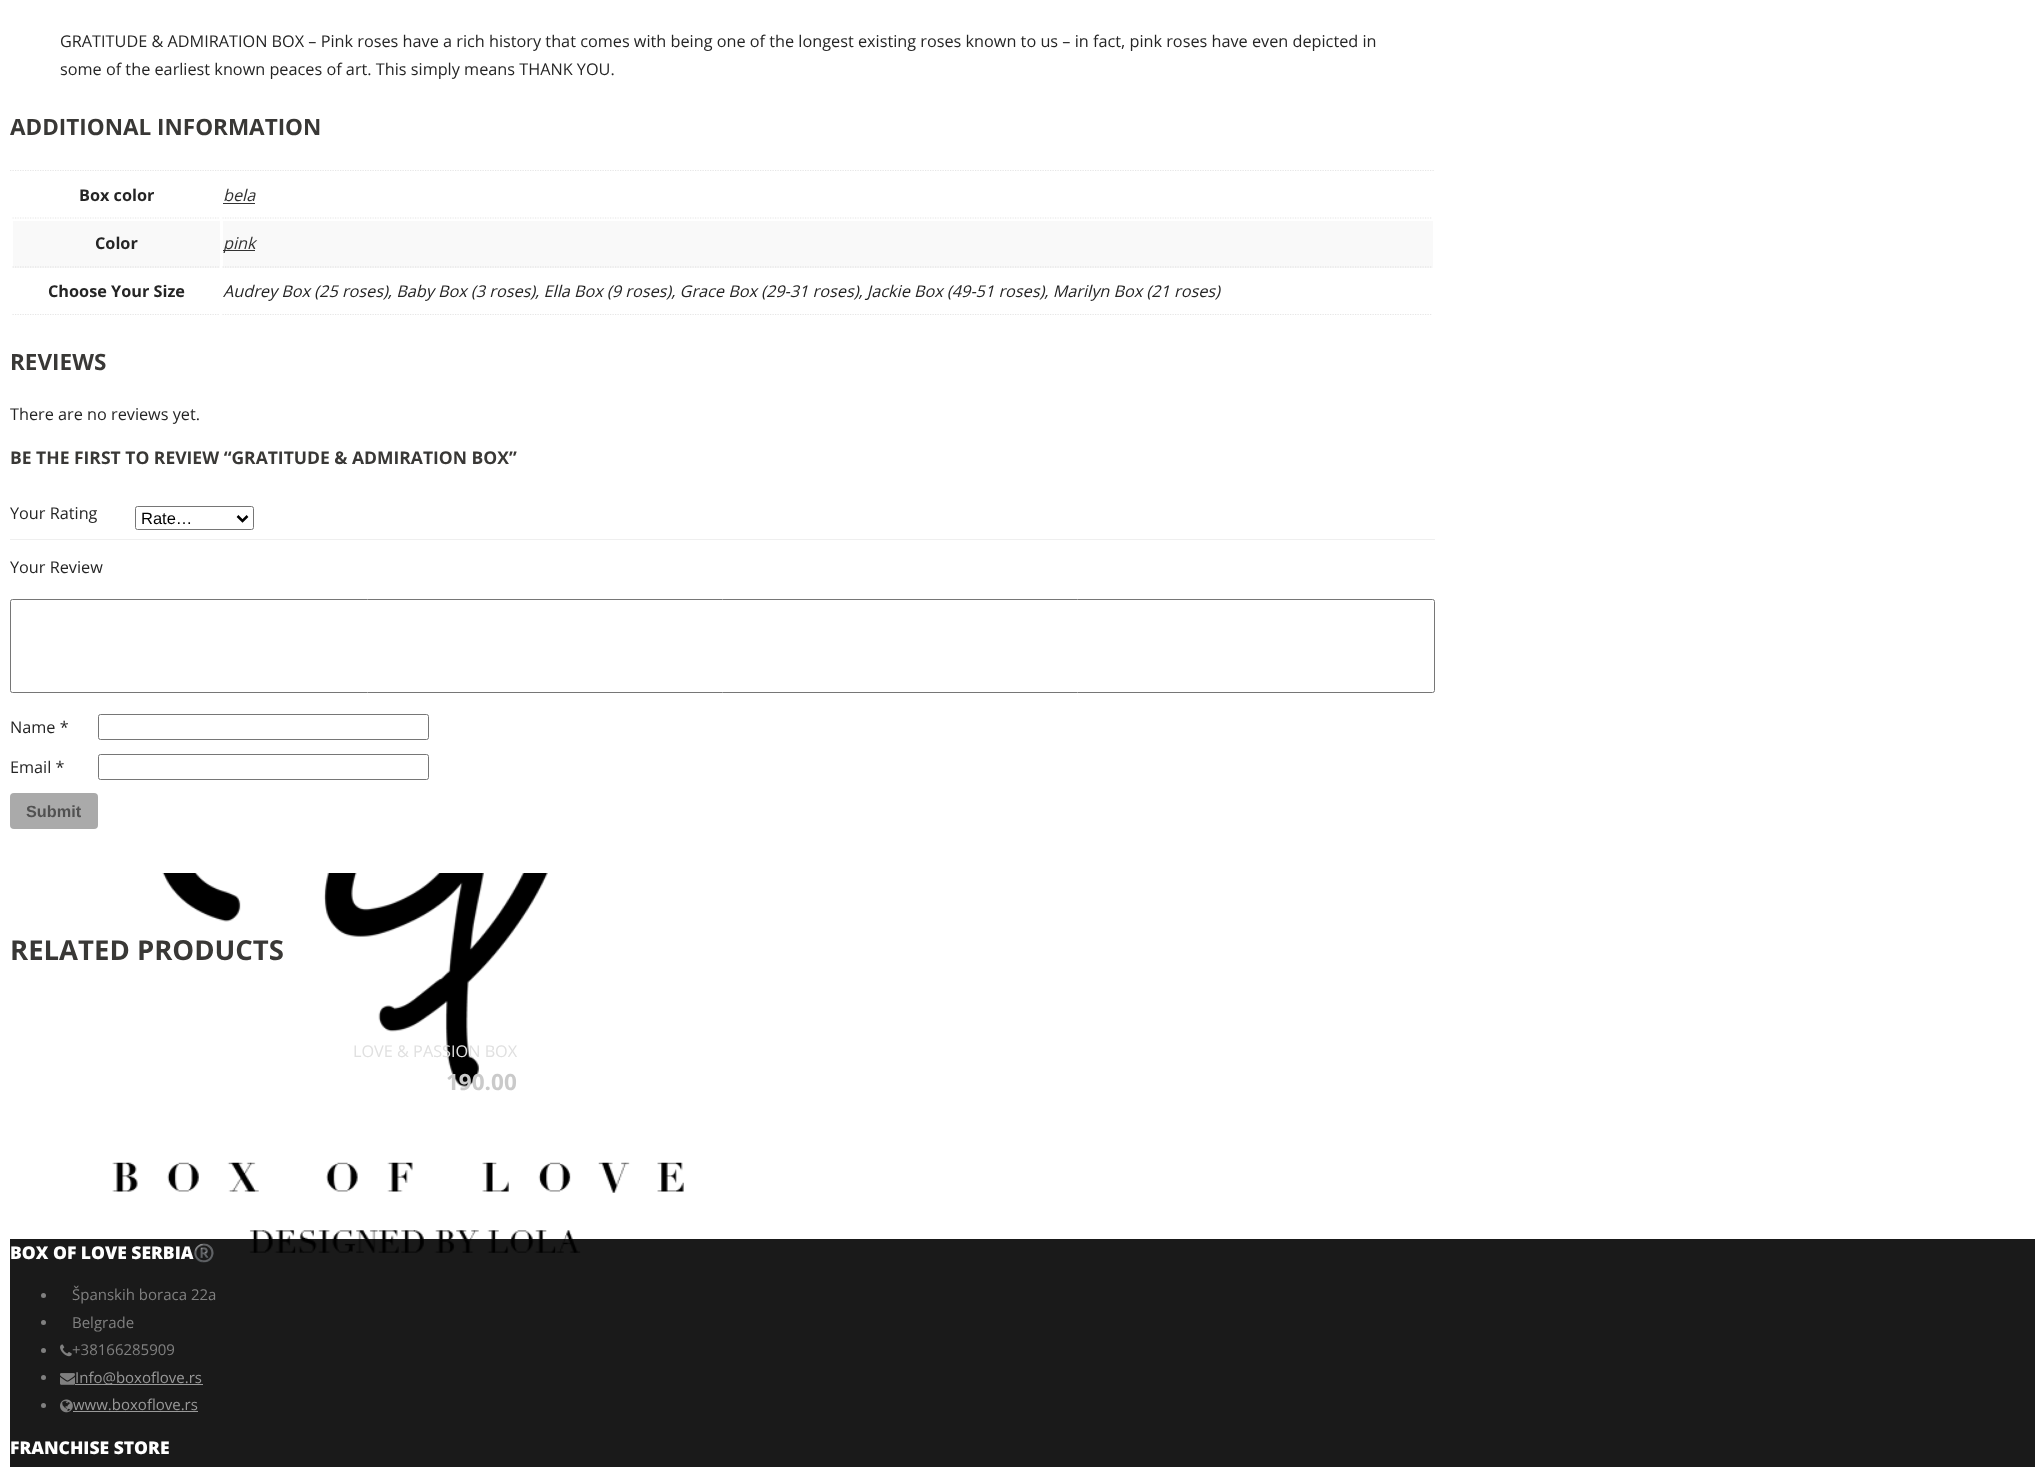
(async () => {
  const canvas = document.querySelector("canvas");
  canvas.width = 2044;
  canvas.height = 1467;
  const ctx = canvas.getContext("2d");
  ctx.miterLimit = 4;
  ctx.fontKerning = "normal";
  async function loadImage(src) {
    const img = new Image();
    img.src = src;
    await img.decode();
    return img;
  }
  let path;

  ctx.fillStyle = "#ffffff";
  ctx.fillRect(0, 0, 2044, 1467);
  path = new Path2D("M10 170.5H1435");
  ctx.strokeStyle = "#e6e6e6";
  ctx.lineWidth = 1.2;
  ctx.setLineDash([1.25, 1.25]);
  ctx.stroke(path);
  path = new Path2D("M12.5 218H220");
  ctx.stroke(path);
  path = new Path2D("M222.5 218H1432.5");
  ctx.stroke(path);
  ctx.fillStyle = "#333333";
  ctx.fillRect(223, 203, 32, 1);
  ctx.fillStyle = "#f9f9f9";
  ctx.fillRect(13, 221, 207, 47);
  path = new Path2D("M12.5 267H220");
  ctx.strokeStyle = "#e0e0e0";
  ctx.stroke(path);
  ctx.fillRect(223, 221, 1210, 47);
  path = new Path2D("M222.5 267H1432.5");
  ctx.stroke(path);
  ctx.fillStyle = "#333333";
  ctx.fillRect(223, 250, 32, 1);
  path = new Path2D("M12.5 314.5H220");
  ctx.strokeStyle = "#e6e6e6";
  ctx.stroke(path);
  path = new Path2D("M222.5 314.5H1432.5");
  ctx.stroke(path);
  ctx.fillStyle = "#efefef";
  ctx.fillRect(10, 539, 1425, 1);
  ctx.beginPath();
  ctx.roundRect(135.5, 506.5, 118, 23, 2);
  ctx.strokeStyle = "#767676";
  ctx.lineWidth = 1;
  ctx.setLineDash([]);
  ctx.stroke();
  path = new Path2D("M237.5 516L242.5 521L247.5 516");
  ctx.strokeStyle = "#000000";
  ctx.lineWidth = 2.5;
  ctx.stroke(path);
  ctx.beginPath();
  ctx.roundRect(10.5, 599.5, 1424, 93, 2);
  ctx.strokeStyle = "#767676";
  ctx.lineWidth = 1;
  ctx.stroke();
  ctx.beginPath();
  ctx.roundRect(98.5, 714.5, 330, 25, 2);
  ctx.stroke();
  ctx.beginPath();
  ctx.roundRect(98.5, 754.5, 330, 25, 2);
  ctx.stroke();
  ctx.fillStyle = "#aaaaaa";
  ctx.beginPath();
  ctx.roundRect(10, 793, 88, 36, 4);
  ctx.fill();
  ctx.fillStyle = "#1a1a1a";
  ctx.fillRect(10, 1239, 2025, 228);
  ctx.drawImage(await loadImage("img/1.png"), 112, 873, 572, 380);
  ctx.fillStyle = "#808080";
  ctx.beginPath();
  ctx.arc(43.5, 1295.5, 2.5, 0, Math.PI * 2);
  ctx.fill();
  ctx.beginPath();
  ctx.arc(43.5, 1322.5, 2.5, 0, Math.PI * 2);
  ctx.fill();
  ctx.beginPath();
  ctx.arc(43.5, 1350.5, 2.5, 0, Math.PI * 2);
  ctx.fill();
  ctx.drawImage(await loadImage("img/2.png"), 60, 1344, 12, 13);
  ctx.beginPath();
  ctx.arc(43.5, 1377.5, 2.5, 0, Math.PI * 2);
  ctx.fill();
  ctx.drawImage(await loadImage("img/3.png"), 60, 1373, 15, 12);
  ctx.fillStyle = "#999999";
  ctx.fillRect(75, 1384, 128, 1);
  ctx.fillStyle = "#808080";
  ctx.beginPath();
  ctx.arc(43.5, 1405.5, 2.5, 0, Math.PI * 2);
  ctx.fill();
  ctx.drawImage(await loadImage("img/4.png"), 60, 1399, 13, 14);
  ctx.fillStyle = "#999999";
  ctx.fillRect(73, 1411, 125, 1);
  ctx.font = "16.25px Open Sans";
  ctx.fillStyle = "#252525";
  ctx.fillText("GRATITUDE & ADMIRATION BOX – Pink roses have a rich history that comes with being one of the longest existing roses known to us – in fact, pink roses have even depicted in", 60, 47);
  ctx.fillText("some of the earliest known peaces of art. This simply means THANK YOU.", 60, 75);
  ctx.font = "bold 22.5px Open Sans";
  ctx.fillStyle = "#393836";
  ctx.fillText("ADDITIONAL INFORMATION", 10, 135);
  ctx.font = "bold 16.25px Open Sans";
  ctx.fillStyle = "#252525";
  ctx.fillText("Box color", 79, 201);
  ctx.font = "italic 16.25px Open Sans";
  ctx.fillStyle = "#333333";
  ctx.fillText("bela", 223, 201);
  ctx.font = "bold 16.25px Open Sans";
  ctx.fillStyle = "#252525";
  ctx.fillText("Color", 95, 249);
  ctx.font = "italic 16.25px Open Sans";
  ctx.fillStyle = "#333333";
  ctx.fillText("pink", 223, 249);
  ctx.font = "bold 16.25px Open Sans";
  ctx.fillStyle = "#252525";
  ctx.fillText("Choose Your Size", 48, 297);
  ctx.font = "italic 16.25px Open Sans";
  ctx.fillText("Audrey Box (25 roses), Baby Box (3 roses), Ella Box (9 roses), Grace Box (29-31 roses), Jackie Box (49-51 roses), Marilyn Box (21 roses)", 223, 297);
  ctx.font = "bold 22.5px Open Sans";
  ctx.fillStyle = "#393836";
  ctx.fillText("REVIEWS", 10, 370);
  ctx.font = "16.25px Open Sans";
  ctx.fillStyle = "#252525";
  ctx.fillText("There are no reviews yet.", 10, 420);
  ctx.font = "bold 17.5px Open Sans";
  ctx.fillStyle = "#393836";
  ctx.fillText("BE THE FIRST TO REVIEW “GRATITUDE & ADMIRATION BOX”", 10, 464);
  ctx.font = "16.25px Open Sans";
  ctx.fillStyle = "#252525";
  ctx.fillText("Your Rating", 10, 519);
  ctx.font = "16.5px Liberation Sans";
  ctx.fillStyle = "#000000";
  ctx.fillText("Rate…", 141, 524);
  ctx.font = "16.25px Open Sans";
  ctx.fillStyle = "#252525";
  for (const [text, x, y] of [
    ["Your Review", 10, 573],
    ["Name *", 10, 733],
    ["Email *", 10, 773],
  ]) {
    ctx.fillText(text, x, y);
  }
  ctx.font = "bold 16.25px Liberation Sans";
  ctx.fillStyle = "#515151";
  ctx.fillText("Submit", 26, 817);
  ctx.font = "bold 27.5px Open Sans";
  ctx.fillStyle = "#393836";
  ctx.fillText("RELATED PRODUCTS", 10, 960);
  ctx.font = "16.25px Open Sans";
  ctx.fillStyle = "#e0e0e0";
  ctx.fillText("LOVE & PASSION BOX", 353, 1057);
  ctx.font = "bold 22.5px Open Sans";
  ctx.fillStyle = "#cacaca";
  ctx.fillText("190.00", 446, 1090);
  ctx.font = "800 17.5px Open Sans";
  ctx.fillStyle = "#ffffff";
  ctx.fillText("BOX OF LOVE SERBIA", 10, 1259);
  ctx.font = "bold 17.5px Noto Color Emoji";
  ctx.fillText("®️", 193, 1259);
  ctx.font = "15px Open Sans";
  ctx.fillStyle = "#808080";
  for (const [text, x, y] of [
    ["Španskih boraca 22a", 72, 1300],
    ["Belgrade", 72, 1328],
    ["+38166285909", 72, 1355],
  ]) {
    ctx.fillText(text, x, y);
  }
  ctx.fillStyle = "#999999";
  ctx.fillText("Info@boxoflove.rs", 75, 1383);
  ctx.fillText("www.boxoflove.rs", 73, 1410);
  ctx.font = "800 17.5px Open Sans";
  ctx.fillStyle = "#ffffff";
  ctx.fillText("FRANCHISE STORE", 10, 1454);
})();
